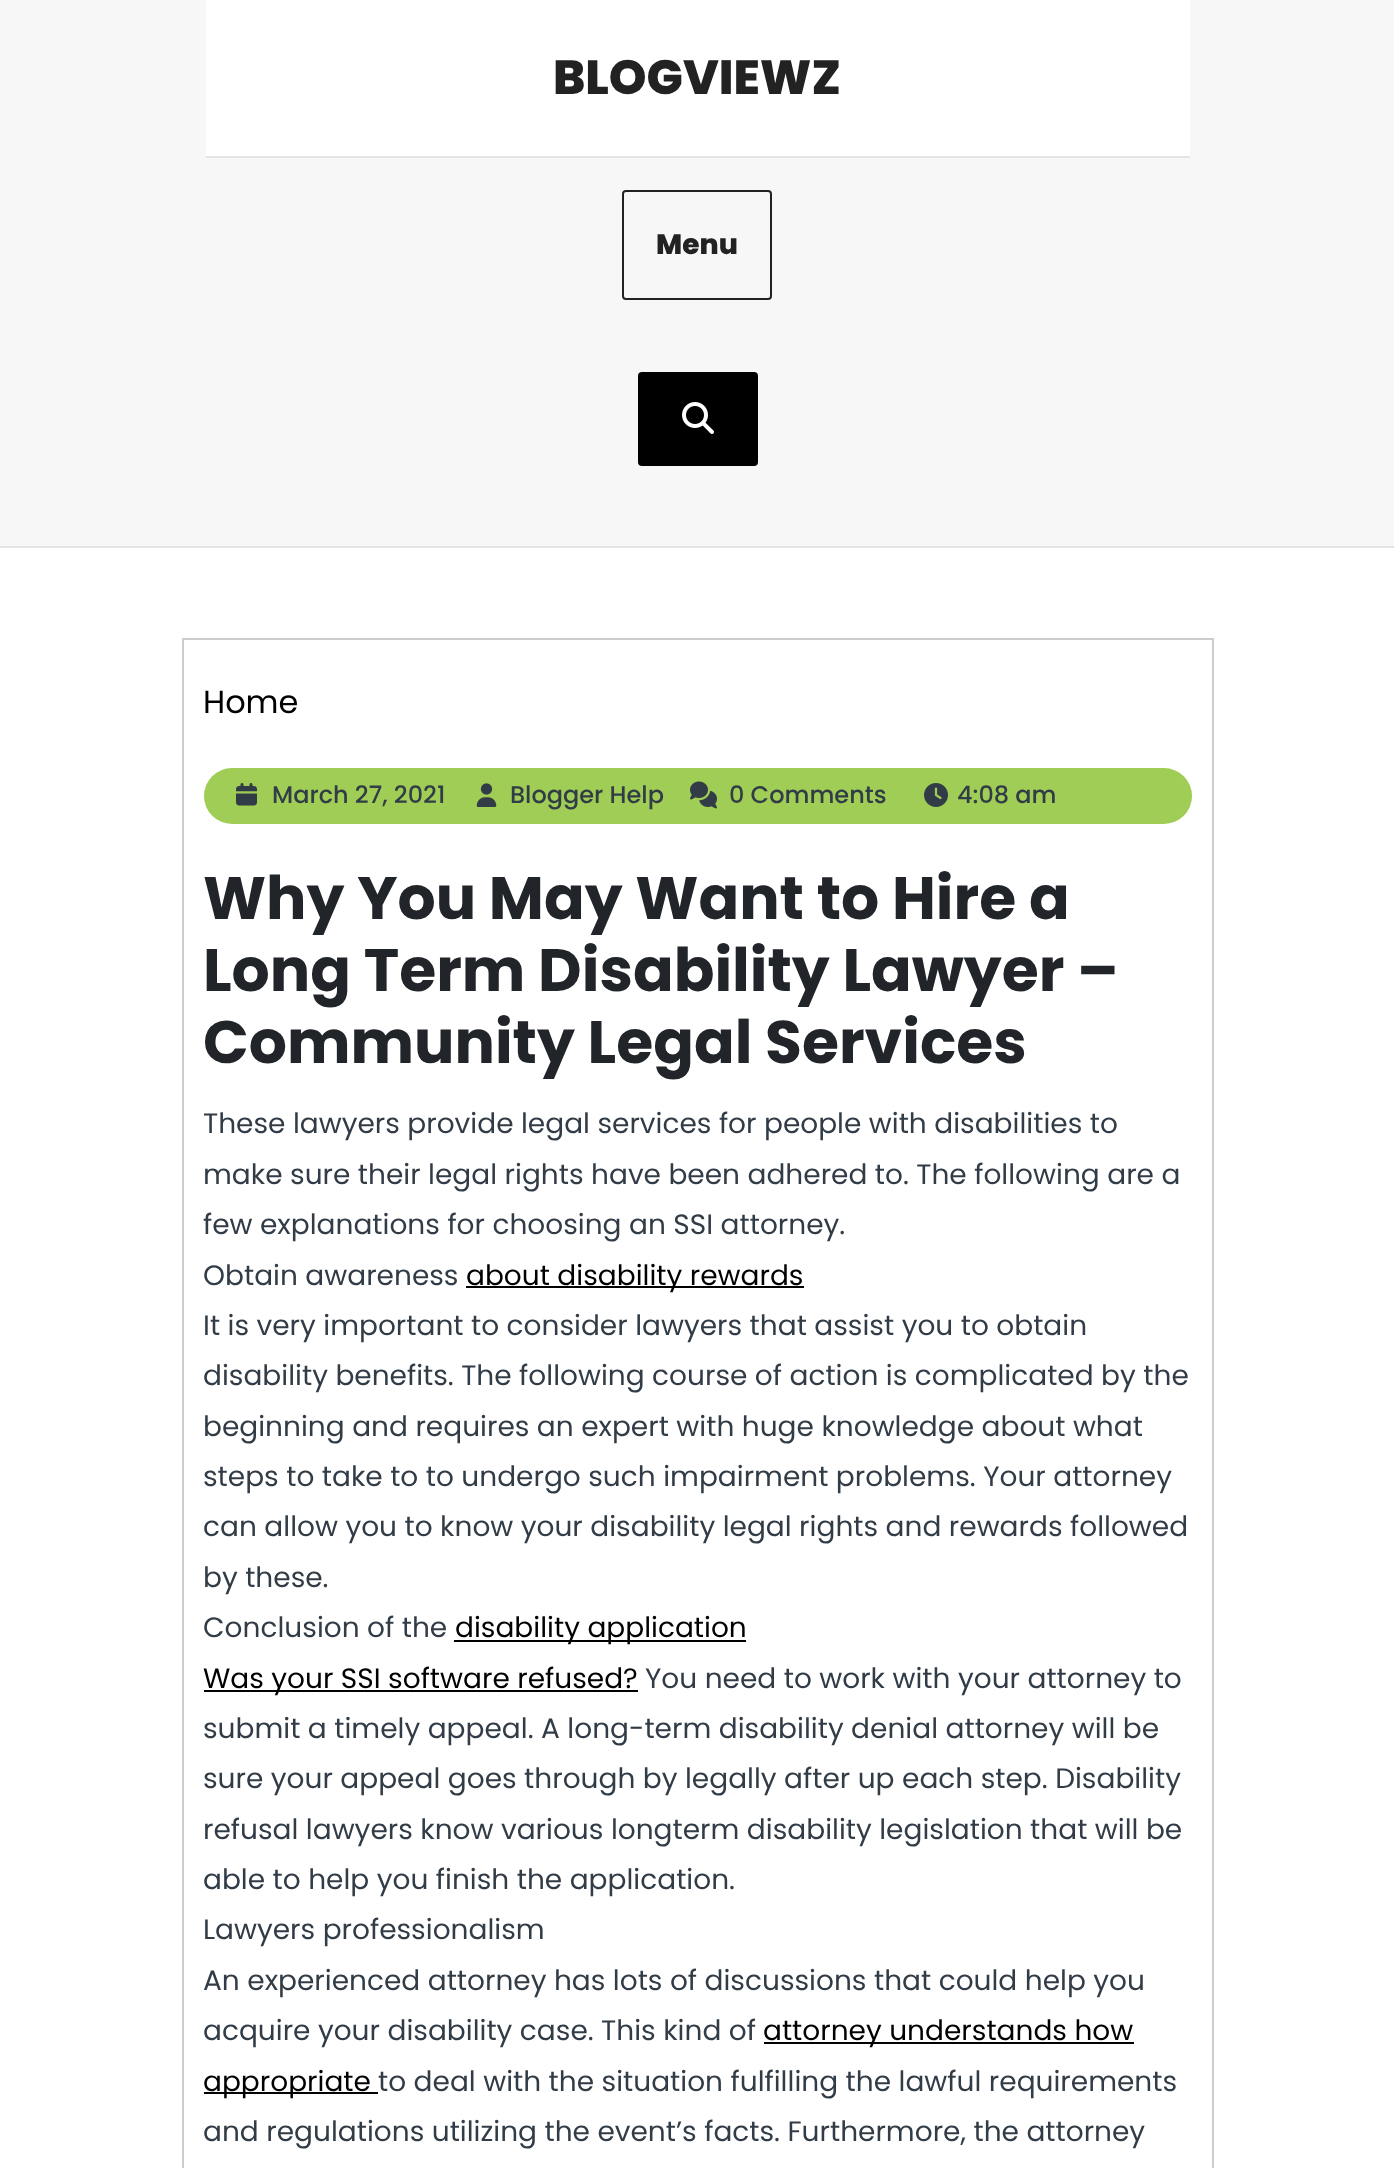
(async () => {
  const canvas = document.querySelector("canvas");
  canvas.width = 1394;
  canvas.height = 2168;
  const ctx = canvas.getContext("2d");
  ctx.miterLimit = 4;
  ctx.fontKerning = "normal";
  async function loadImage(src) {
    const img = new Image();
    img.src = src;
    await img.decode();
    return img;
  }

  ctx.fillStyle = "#ffffff";
  ctx.fillRect(0, 0, 1394, 2168);
  for (const [x, y, w, h, color] of [
    [0, 0, 1394, 546, "#f7f7f7"],
    [0, 546, 1394, 2, "#e3e4e4"],
    [206, 0, 984, 156, "#ffffff"],
    [206, 156, 984, 2, "#e3e4e4"],
  ]) {
    ctx.fillStyle = color;
    ctx.fillRect(x, y, w, h);
  }
  ctx.beginPath();
  ctx.roundRect(623, 191, 148, 108, 3);
  ctx.strokeStyle = "#222222";
  ctx.lineWidth = 2;
  ctx.stroke();
  ctx.fillStyle = "#000000";
  ctx.beginPath();
  ctx.roundRect(638, 372, 120, 94, 4);
  ctx.fill();
  ctx.drawImage(await loadImage("img/1.png"), 682, 402, 32, 32);
  ctx.strokeStyle = "#cccccc";
  ctx.strokeRect(183, 639, 1030, 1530);
  ctx.fillStyle = "#9fcd55";
  ctx.beginPath();
  ctx.roundRect(204, 768, 988, 56, 28);
  ctx.fill();
  ctx.drawImage(await loadImage("img/2.png"), 236, 783, 21, 23);
  ctx.drawImage(await loadImage("img/3.png"), 476, 783, 21, 24);
  ctx.drawImage(await loadImage("img/4.png"), 690, 781, 27, 28);
  ctx.drawImage(await loadImage("img/5.png"), 924, 783, 24, 24);
  for (const [x, y, w, h, color] of [
    [466, 1286, 338, 2, "#000000"],
    [454, 1640, 292, 2, "#000000"],
    [204, 1690, 434, 2, "#000000"],
    [764, 2042, 370, 2, "#000000"],
    [204, 2092, 174, 2, "#000000"],
  ]) {
    ctx.fillStyle = color;
    ctx.fillRect(x, y, w, h);
  }
  ctx.font = "800 48px Poppins";
  ctx.fillStyle = "#222222";
  ctx.fillText("BLOGVIEWZ", 553, 94);
  ctx.font = "800 28px Poppins";
  ctx.fillText("Menu", 656, 254);
  ctx.font = "32px Poppins";
  ctx.fillStyle = "#000000";
  ctx.fillText("Home", 203, 713);
  ctx.font = "500 24px Poppins";
  ctx.fillStyle = "#323c47";
  for (const [text, x, y] of [
    ["March 27, 2021", 272, 803],
    ["Blogger Help", 510, 803],
    ["0 Comments", 729, 803],
    ["4:08 am", 957, 803],
  ]) {
    ctx.fillText(text, x, y);
  }
  ctx.font = "bold 60px Poppins";
  ctx.fillStyle = "#212529";
  for (const [text, x, y] of [
    ["Why You May Want to Hire a", 203, 919],
    ["Long Term Disability Lawyer –", 203, 991],
    ["Community Legal Services", 203, 1063],
  ]) {
    ctx.fillText(text, x, y);
  }
  ctx.font = "28px Poppins";
  ctx.fillStyle = "#323c47";
  for (const [text, x, y] of [
    ["These lawyers provide legal services for people with disabilities to", 203, 1133],
    ["make sure their legal rights have been adhered to. The following are a", 203, 1184],
    ["few explanations for choosing an SSI attorney.", 203, 1234],
    ["Obtain awareness", 203, 1285],
  ]) {
    ctx.fillText(text, x, y);
  }
  ctx.fillStyle = "#000000";
  ctx.fillText("about disability rewards", 466, 1285);
  ctx.fillStyle = "#323c47";
  for (const [text, x, y] of [
    ["It is very important to consider lawyers that assist you to obtain", 203, 1335],
    ["disability benefits. The following course of action is complicated by the", 203, 1385],
    ["beginning and requires an expert with huge knowledge about what", 203, 1436],
    ["steps to take to to undergo such impairment problems. Your attorney", 203, 1486],
    ["can allow you to know your disability legal rights and rewards followed", 203, 1536],
    ["by these.", 203, 1587],
    ["Conclusion of the", 203, 1637],
  ]) {
    ctx.fillText(text, x, y);
  }
  ctx.fillStyle = "#000000";
  ctx.fillText("disability application", 455, 1637);
  ctx.fillText("Was your SSI software refused?", 203, 1688);
  ctx.fillStyle = "#323c47";
  for (const [text, x, y] of [
    ["You need to work with your attorney to", 645, 1688],
    ["submit a timely appeal. A long-term disability denial attorney will be", 203, 1738],
    ["sure your appeal goes through by legally after up each step. Disability", 203, 1788],
    ["refusal lawyers know various longterm disability legislation that will be", 203, 1839],
    ["able to help you finish the application.", 203, 1889],
    ["Lawyers professionalism", 203, 1939],
    ["An experienced attorney has lots of discussions that could help you", 203, 1990],
    ["acquire your disability case. This kind of", 203, 2040],
  ]) {
    ctx.fillText(text, x, y);
  }
  ctx.fillStyle = "#000000";
  ctx.fillText("attorney understands how", 763, 2040);
  ctx.fillText("appropriate", 203, 2091);
  ctx.fillStyle = "#323c47";
  ctx.fillText("to deal with the situation fulfilling the lawful requirements", 378, 2091);
  ctx.fillText("and regulations utilizing the event’s facts. Furthermore, the attorney", 203, 2141);
})();
